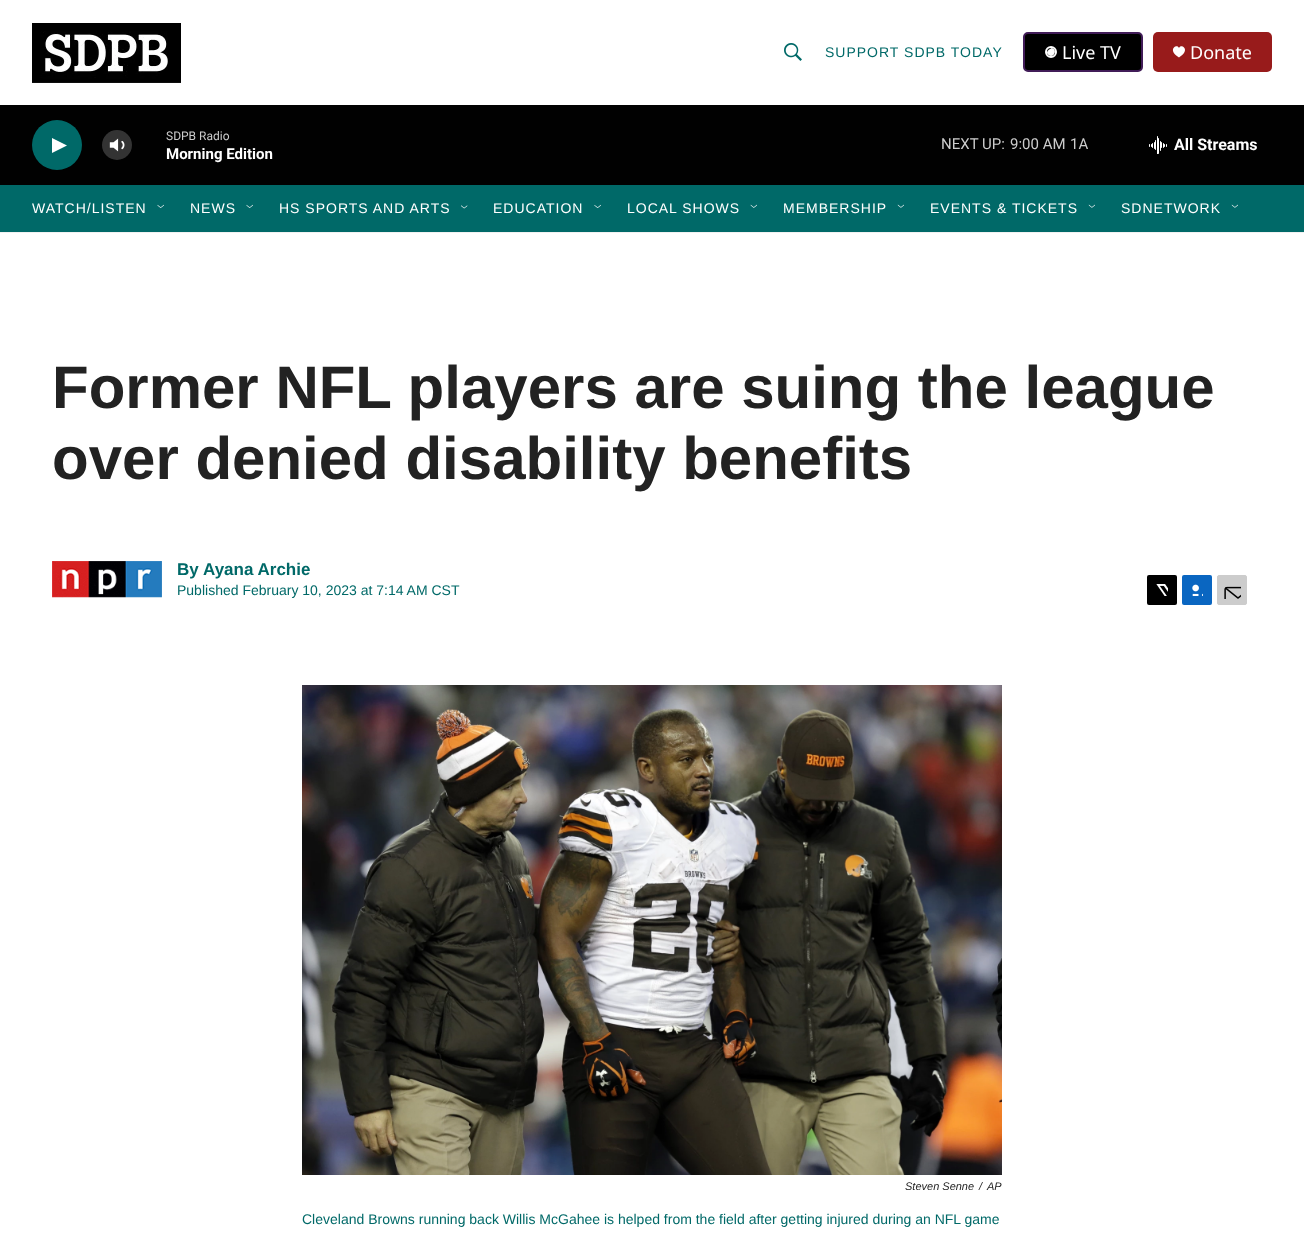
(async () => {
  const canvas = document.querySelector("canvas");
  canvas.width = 1304;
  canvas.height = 1240;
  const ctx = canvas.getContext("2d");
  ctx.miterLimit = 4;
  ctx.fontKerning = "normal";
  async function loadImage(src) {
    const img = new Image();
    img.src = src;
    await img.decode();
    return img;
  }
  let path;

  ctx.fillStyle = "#ffffff";
  ctx.fillRect(0, 0, 1304, 1240);
  ctx.fillStyle = "#f1f1f1";
  ctx.fillRect(0, 232, 1304, 1);
  ctx.drawImage(await loadImage("img/1.png"), 32, 23, 149, 60);
  ctx.drawImage(await loadImage("img/2.png"), 784, 43, 18, 18);
  ctx.fillStyle = "#000000";
  ctx.beginPath();
  ctx.roundRect(1024, 33, 118, 38, 4);
  ctx.fill();
  ctx.strokeStyle = "#411c58";
  ctx.lineWidth = 2;
  ctx.stroke();
  ctx.beginPath();
  ctx.arc(1051, 52, 5, 0, Math.PI * 2);
  ctx.strokeStyle = "#ffffff";
  ctx.stroke();
  ctx.fillStyle = "#ffffff";
  path = new Path2D("M1052 48C1058 49.5 1053.5 59 1048.5 55C1048 54.5 1047 53.5 1047 53C1047 50.5 1050 48.5 1052 48Z");
  ctx.fill(path);
  ctx.fillStyle = "#981b1b";
  ctx.beginPath();
  ctx.roundRect(1153, 32, 119, 40, 5);
  ctx.fill();
  ctx.fillStyle = "#ffffff";
  path = new Path2D("M1179 48C1177 43 1166.5 50 1179 57.5C1191.5 50 1181 43 1179 48Z");
  ctx.fill(path);
  ctx.fillStyle = "#010101";
  ctx.fillRect(0, 105, 1304, 80);
  ctx.fillStyle = "#006968";
  ctx.beginPath();
  ctx.arc(57, 145, 25, 0, Math.PI * 2);
  ctx.fill();
  ctx.fillStyle = "#ffffff";
  path = new Path2D("M52 138L67 145.5L52 153Z");
  ctx.fill(path);
  ctx.drawImage(await loadImage("img/3.png"), 109, 138, 16, 14);
  ctx.fillStyle = "rgba(255, 255, 255, 0.2)";
  ctx.beginPath();
  ctx.arc(117, 145, 15, 0, Math.PI * 2);
  ctx.fill();
  ctx.drawImage(await loadImage("img/4.png"), 1149, 136, 18, 18);
  ctx.fillStyle = "#006968";
  ctx.fillRect(0, 185, 1304, 47);
  ctx.drawImage(await loadImage("img/5.png"), 157, 204, 7, 4);
  ctx.drawImage(await loadImage("img/5.png"), 246, 204, 7, 4);
  ctx.drawImage(await loadImage("img/6.png"), 461, 205, 7, 4);
  ctx.drawImage(await loadImage("img/7.png"), 594, 204, 7, 4);
  ctx.drawImage(await loadImage("img/8.png"), 750, 204, 7, 4);
  ctx.drawImage(await loadImage("img/9.png"), 897, 204, 7, 4);
  ctx.drawImage(await loadImage("img/9.png"), 1088, 204, 7, 4);
  ctx.drawImage(await loadImage("img/9.png"), 1231, 204, 7, 4);
  ctx.drawImage(await loadImage("img/10.png"), 52, 561, 110, 37);
  ctx.fillStyle = "#000000";
  ctx.beginPath();
  ctx.roundRect(1147, 575, 30, 30, 2);
  ctx.fill();
  ctx.drawImage(await loadImage("img/11.png"), 1156, 584, 12, 12);
  ctx.fillStyle = "#0a66c1";
  ctx.beginPath();
  ctx.roundRect(1182, 575, 30, 30, 2);
  ctx.fill();
  ctx.drawImage(await loadImage("img/12.png"), 1192, 584, 11, 12);
  ctx.fillStyle = "#cccccc";
  ctx.beginPath();
  ctx.roundRect(1217.5, 575.5, 29, 29, 1.5);
  ctx.fill();
  ctx.strokeStyle = "#cccccc";
  ctx.lineWidth = 1;
  ctx.stroke();
  ctx.drawImage(await loadImage("img/13.png"), 1224, 586, 17, 13);
  ctx.drawImage(await loadImage("img/14.png"), 302, 685, 700, 490);
  ctx.letterSpacing = "1px";
  ctx.font = "14px Liberation Sans";
  ctx.fillStyle = "#006968";
  ctx.fillText("SUPPORT SDPB TODAY", 825, 57);
  ctx.letterSpacing = "0px";
  ctx.font = "18px Noto Sans";
  ctx.fillStyle = "#ffffff";
  ctx.fillText("Live TV", 1062, 59);
  ctx.fillText("Donate", 1190, 59);
  ctx.font = "12px Roboto";
  ctx.fillStyle = "#cccccc";
  ctx.fillText("SDPB Radio", 166, 140);
  ctx.font = "bold 15px Roboto";
  ctx.fillStyle = "#ffffff";
  ctx.fillText("Morning Edition", 166, 159);
  ctx.font = "15px Roboto";
  ctx.fillStyle = "#cccccc";
  for (const [text, x, y] of [
    ["NEXT UP:", 941, 149],
    ["9:00 AM", 1010, 149],
    ["1A", 1070, 149],
  ]) {
    ctx.fillText(text, x, y);
  }
  ctx.font = "bold 16px Roboto";
  ctx.fillStyle = "#ffffff";
  ctx.fillText("All Streams", 1174, 150);
  ctx.letterSpacing = "1px";
  ctx.font = "14px Liberation Sans";
  for (const [text, x, y] of [
    ["WATCH/LISTEN", 32, 213],
    ["NEWS", 190, 213],
    ["HS SPORTS AND ARTS", 279, 213],
    ["EDUCATION", 493, 213],
    ["LOCAL SHOWS", 627, 213],
    ["MEMBERSHIP", 783, 213],
    ["EVENTS & TICKETS", 930, 213],
    ["SDNETWORK", 1121, 213],
  ]) {
    ctx.fillText(text, x, y);
  }
  ctx.letterSpacing = "0px";
  ctx.font = "bold 60px Liberation Sans";
  ctx.fillStyle = "#222222";
  ctx.fillText("Former NFL players are suing the league", 52, 408);
  ctx.fillText("over denied disability benefits", 52, 479);
  ctx.font = "bold 17px Liberation Sans";
  ctx.fillStyle = "#006968";
  ctx.fillText("By", 177, 575);
  ctx.fillText("Ayana Archie", 203, 575);
  ctx.font = "14px Liberation Sans";
  ctx.fillText("Published February 10, 2023 at 7:14 AM CST", 177, 595);
  ctx.font = "italic 11px Liberation Sans";
  ctx.fillStyle = "#222222";
  for (const [text, x, y] of [
    ["Steven Senne", 905, 1190],
    ["/", 979, 1190],
    ["AP", 987, 1190],
  ]) {
    ctx.fillText(text, x, y);
  }
  ctx.font = "14px Liberation Sans";
  ctx.fillStyle = "#006968";
  ctx.fillText("Cleveland Browns running back Willis McGahee is helped from the field after getting injured during an NFL game", 302, 1224);
})();
